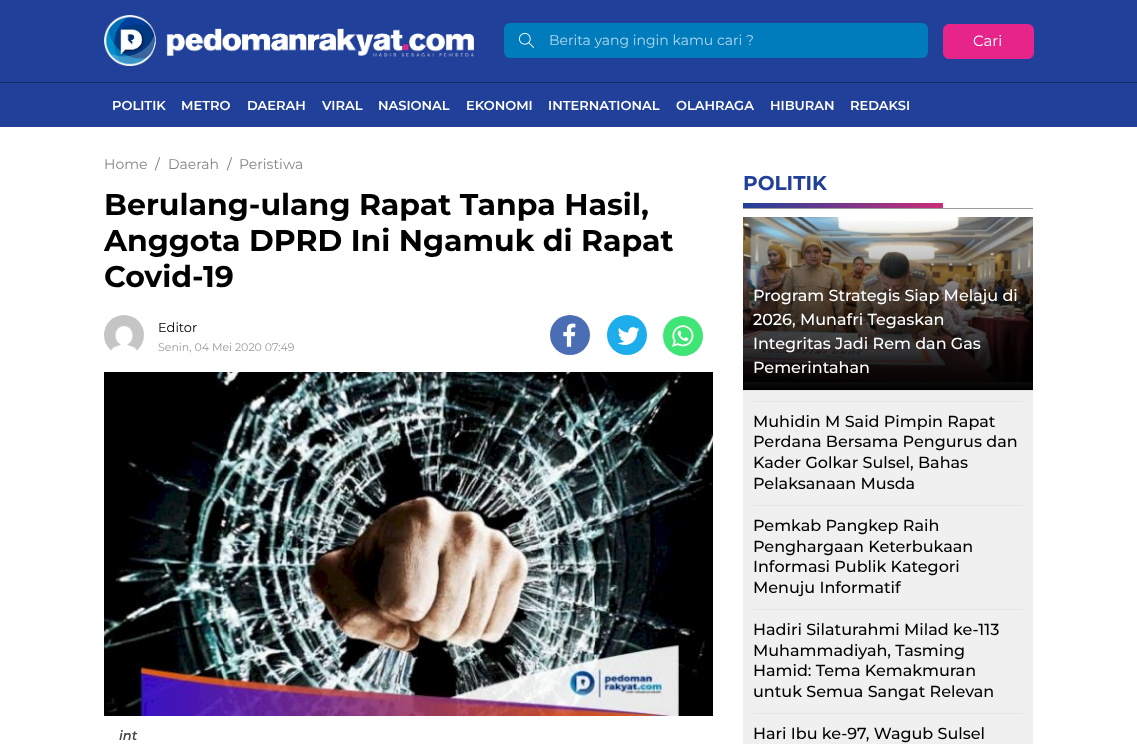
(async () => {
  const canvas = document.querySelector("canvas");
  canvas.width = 1137;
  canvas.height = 744;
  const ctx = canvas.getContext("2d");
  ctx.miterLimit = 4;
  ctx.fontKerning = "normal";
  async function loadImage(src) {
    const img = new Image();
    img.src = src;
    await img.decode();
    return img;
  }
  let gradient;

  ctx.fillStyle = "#ffffff";
  ctx.fillRect(0, 0, 1137, 744);
  ctx.fillStyle = "#21409a";
  ctx.fillRect(0, 0, 1137, 127);
  ctx.drawImage(await loadImage("img/1.png"), 104, 15, 370, 51);
  ctx.fillStyle = "#007cbd";
  ctx.beginPath();
  ctx.roundRect(504, 23, 424, 35, 6);
  ctx.fill();
  ctx.drawImage(await loadImage("img/2.png"), 519, 32, 15, 16);
  ctx.fillStyle = "#e7248a";
  ctx.beginPath();
  ctx.roundRect(943.5, 24.5, 90, 34, 5.5);
  ctx.fill();
  ctx.strokeStyle = "#e7248a";
  ctx.stroke();
  ctx.fillStyle = "#152b6a";
  ctx.fillRect(0, 82, 1137, 1);
  ctx.drawImage(await loadImage("img/3.png"), 104, 315, 40, 36);
  ctx.fillStyle = "#4a6db4";
  ctx.beginPath();
  ctx.arc(570, 335, 20, 0, Math.PI * 2);
  ctx.fill();
  ctx.drawImage(await loadImage("img/4.png"), 563, 323, 13, 24);
  ctx.fillStyle = "#1dadeb";
  ctx.beginPath();
  ctx.arc(627, 335, 20, 0, Math.PI * 2);
  ctx.fill();
  ctx.drawImage(await loadImage("img/5.png"), 617, 327, 23, 18);
  ctx.fillStyle = "#3fe675";
  ctx.beginPath();
  ctx.arc(683, 336, 20, 0, Math.PI * 2);
  ctx.fill();
  ctx.drawImage(await loadImage("img/6.png"), 672, 325, 22, 22);
  ctx.drawImage(await loadImage("img/7.png"), 104, 372, 609, 344);
  ctx.fillStyle = "#9b9b9b";
  ctx.fillRect(743, 208, 290, 1);
  gradient = ctx.createLinearGradient(743, 206, 943, 206);
  gradient.addColorStop(0, "#21409a");
  gradient.addColorStop(1, "#cc2d78");
  ctx.fillStyle = gradient;
  ctx.fillRect(743, 203, 200, 5);
  ctx.drawImage(await loadImage("img/8.png"), 743, 217, 290, 165);
  gradient = ctx.createLinearGradient(888, 217, 888, 390);
  gradient.addColorStop(0, "rgba(0, 0, 0, 0)");
  gradient.addColorStop(1, "#000000");
  ctx.fillStyle = gradient;
  ctx.fillRect(743, 221, 290, 169);
  for (const [x, y, w, h, color] of [
    [743, 391, 290, 353, "#f0f0f0"],
    [743, 390, 290, 1, "#e5e5e5"],
    [753, 401, 270, 1, "#e5e5e5"],
    [753, 505, 270, 1, "#e5e5e5"],
    [753, 609, 270, 1, "#e5e5e5"],
    [753, 713, 270, 1, "#e5e5e5"],
  ]) {
    ctx.fillStyle = color;
    ctx.fillRect(x, y, w, h);
  }
  ctx.font = "100 14px 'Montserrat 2'";
  ctx.fillStyle = "#b3d8eb";
  ctx.fillText("Berita yang ingin kamu cari ?", 549, 45);
  ctx.font = "100 15px 'Montserrat 2'";
  ctx.fillStyle = "#ffffff";
  ctx.fillText("Cari", 973, 46);
  ctx.font = "100 13px Montserrat";
  for (const [text, x, y] of [
    ["POLITIK", 112, 110],
    ["METRO", 181, 110],
    ["DAERAH", 247, 110],
    ["VIRAL", 322, 110],
    ["NASIONAL", 378, 110],
    ["EKONOMI", 466, 110],
    ["INTERNATIONAL", 548, 110],
    ["OLAHRAGA", 676, 110],
    ["HIBURAN", 770, 110],
    ["REDAKSI", 850, 110],
  ]) {
    ctx.fillText(text, x, y);
  }
  ctx.font = "100 14px 'Montserrat 2'";
  ctx.fillStyle = "#848484";
  ctx.fillText("Home", 104, 169);
  ctx.fillStyle = "#6c757d";
  ctx.fillText("/", 155, 169);
  ctx.fillStyle = "#848484";
  ctx.fillText("Daerah", 168, 169);
  ctx.fillStyle = "#6c757d";
  ctx.fillText("/", 227, 169);
  ctx.fillStyle = "#848484";
  ctx.fillText("Peristiwa", 239, 169);
  ctx.font = "100 30px 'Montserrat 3'";
  ctx.fillStyle = "#000000";
  for (const [text, x, y] of [
    ["Berulang-ulang Rapat Tanpa Hasil,", 104, 215],
    ["Anggota DPRD Ini Ngamuk di Rapat", 104, 251],
    ["Covid-19", 104, 287],
  ]) {
    ctx.fillText(text, x, y);
  }
  ctx.font = "100 13px 'Montserrat 2'";
  ctx.fillText("Editor", 158, 332);
  ctx.font = "100 11px 'Montserrat 2'";
  ctx.fillStyle = "#999999";
  ctx.fillText("Senin, 04 Mei 2020 07:49", 158, 351);
  ctx.font = "italic 100 13px Montserrat";
  ctx.fillStyle = "#4a4a4a";
  ctx.fillText("int", 119, 740);
  ctx.font = "100 20px 'Montserrat 3'";
  ctx.fillStyle = "#21409a";
  ctx.fillText("POLITIK", 743, 190);
  ctx.font = "100 16px 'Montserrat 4'";
  ctx.fillStyle = "#ffffff";
  for (const [text, x, y] of [
    ["Program Strategis Siap Melaju di", 753, 301],
    ["2026, Munafri Tegaskan", 753, 325],
    ["Integritas Jadi Rem dan Gas", 753, 349],
    ["Pemerintahan", 753, 373],
  ]) {
    ctx.fillText(text, x, y);
  }
  ctx.fillStyle = "#000000";
  for (const [text, x, y] of [
    ["Muhidin M Said Pimpin Rapat", 753, 427],
    ["Perdana Bersama Pengurus dan", 753, 447],
    ["Kader Golkar Sulsel, Bahas", 753, 468],
    ["Pelaksanaan Musda", 753, 489],
    ["Pemkab Pangkep Raih", 753, 531],
    ["Penghargaan Keterbukaan", 753, 552],
    ["Informasi Publik Kategori", 753, 572],
    ["Menuju Informatif", 753, 593],
    ["Hadiri Silaturahmi Milad ke-113", 753, 635],
    ["Muhammadiyah, Tasming", 753, 656],
    ["Hamid: Tema Kemakmuran", 753, 676],
    ["untuk Semua Sangat Relevan", 753, 697],
    ["Hari Ibu ke-97, Wagub Sulsel", 753, 739],
  ]) {
    ctx.fillText(text, x, y);
  }
})();
